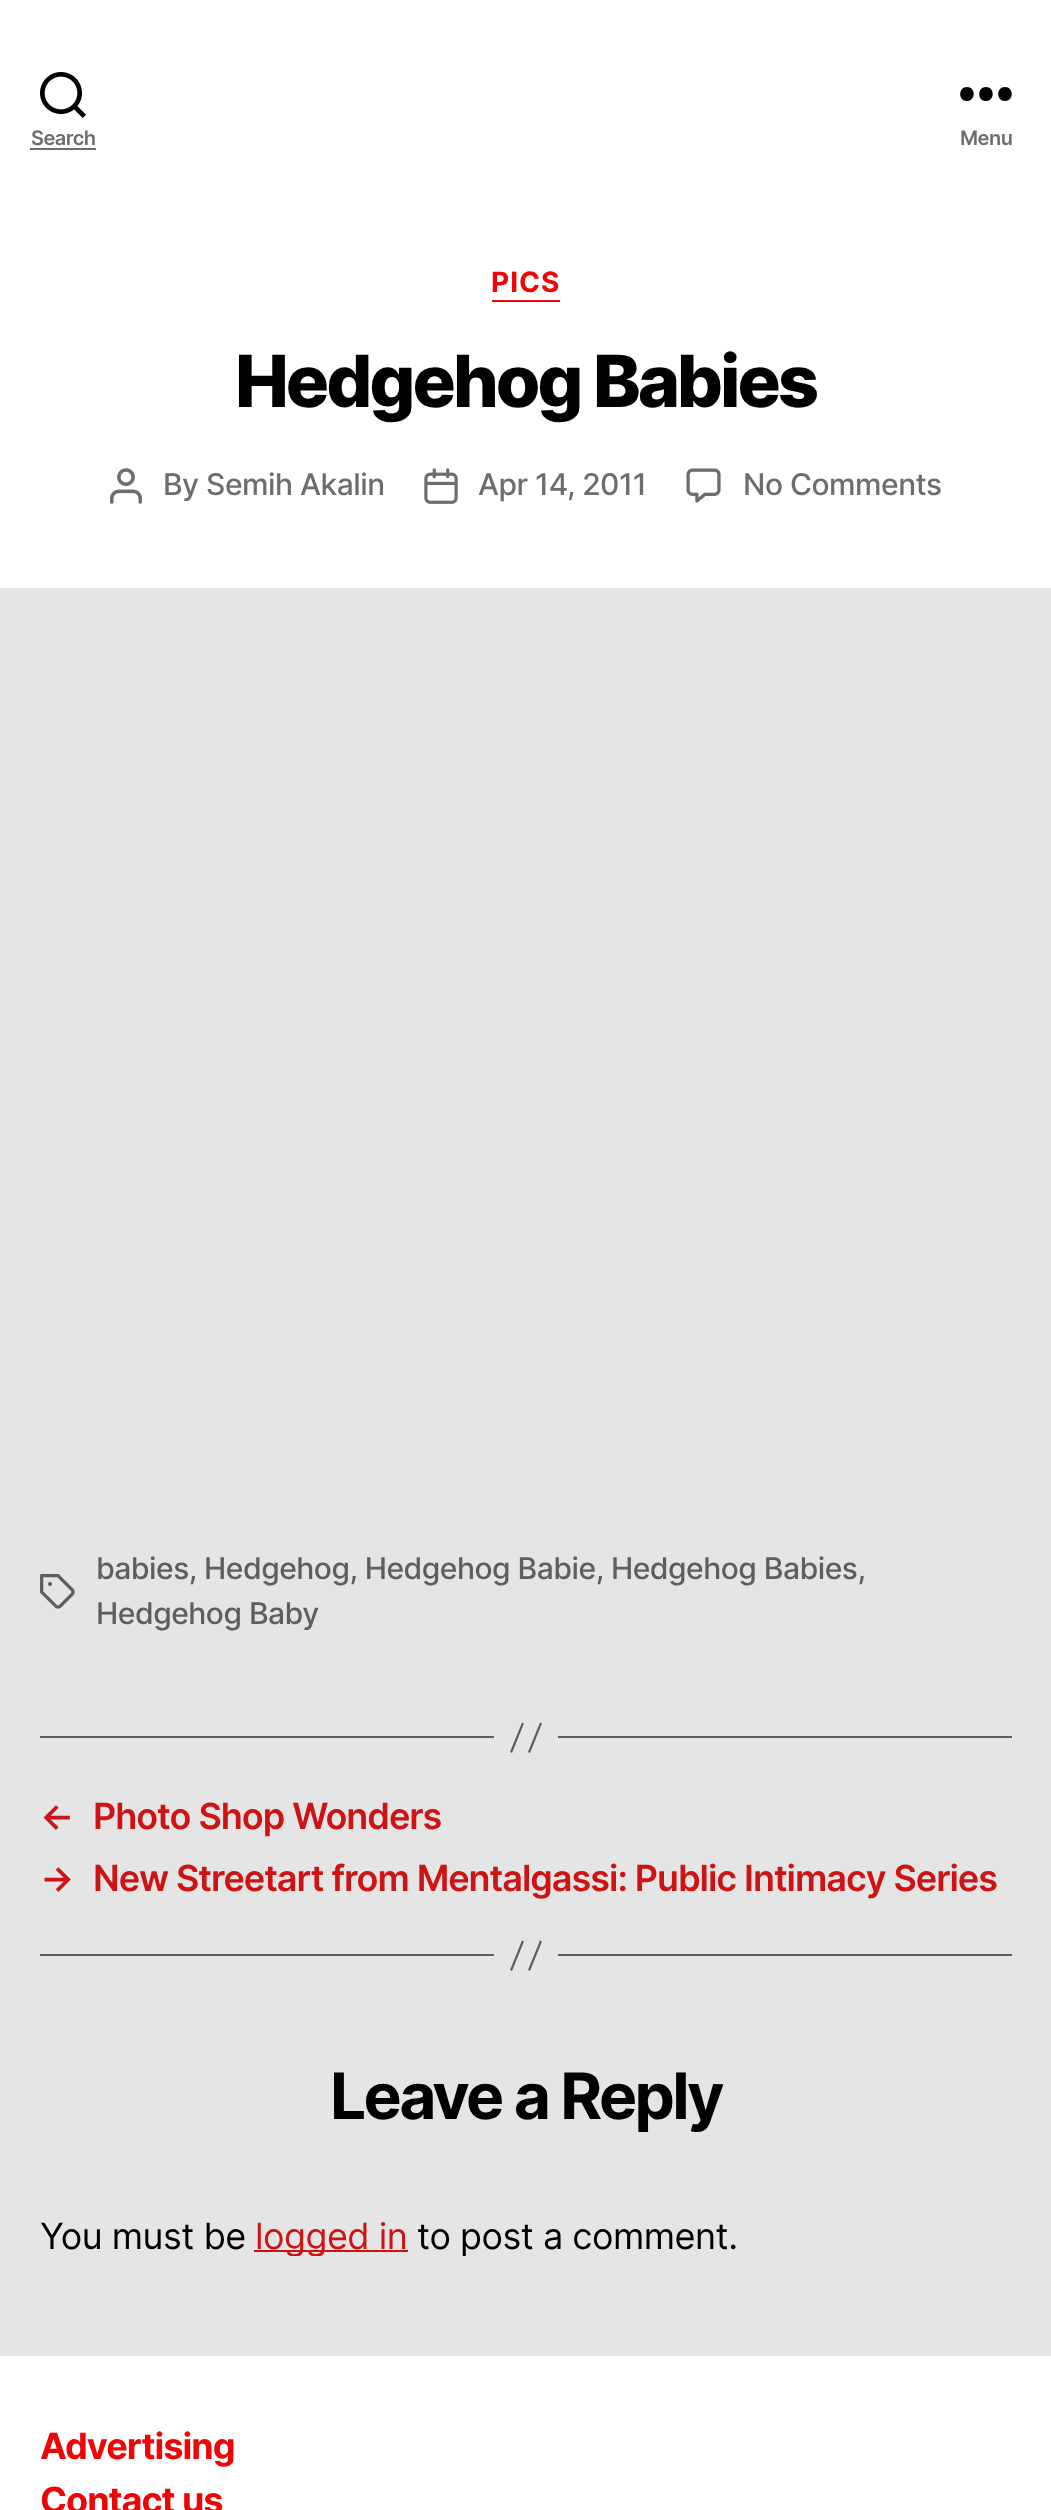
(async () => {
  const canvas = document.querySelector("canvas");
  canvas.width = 1051;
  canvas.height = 2510;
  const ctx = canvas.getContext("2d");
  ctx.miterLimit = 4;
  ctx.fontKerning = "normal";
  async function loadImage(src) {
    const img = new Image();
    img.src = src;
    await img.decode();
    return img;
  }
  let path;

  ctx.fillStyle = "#e5e5e5";
  ctx.fillRect(0, 0, 1051, 2510);
  ctx.fillStyle = "#ffffff";
  ctx.fillRect(0, 0, 1051, 588);
  ctx.drawImage(await loadImage("img/1.png"), 40, 72, 46, 46);
  ctx.fillStyle = "#6d6d6d";
  ctx.fillRect(30, 148, 66, 2);
  ctx.fillStyle = "#000000";
  path = new Path2D("M967 101C958 101 958 87 967 87C976 87 976 101 967 101ZM986 101C977 101 977 87 986 87C995 87 995 101 986 101ZM1005 101C996 101 996 87 1005 87C1014 87 1014 101 1005 101Z");
  ctx.fill(path, "evenodd");
  ctx.fillStyle = "#ee0606";
  ctx.fillRect(492, 300, 68, 2);
  ctx.drawImage(await loadImage("img/2.png"), 110, 468, 32, 36);
  ctx.drawImage(await loadImage("img/3.png"), 424, 468, 34, 36);
  ctx.drawImage(await loadImage("img/4.png"), 686, 468, 35, 35);
  ctx.drawImage(await loadImage("img/5.png"), 40, 1574, 35, 35);
  ctx.fillStyle = "#5e5e5e";
  ctx.fillRect(558, 1736, 454, 2);
  ctx.fillRect(40, 1736, 454, 2);
  path = new Path2D("M522 1722.5L524 1723.5L512 1753L510 1752ZM540 1722.5L542 1723.5L530 1753L528 1752Z");
  ctx.fill(path);
  ctx.fillRect(558, 1954, 454, 2);
  ctx.fillRect(40, 1954, 454, 2);
  path = new Path2D("M522 1940.5L524 1941.5L512 1971L510 1970ZM540 1940.5L542 1941.5L530 1971L528 1970Z");
  ctx.fill(path);
  ctx.fillStyle = "#cd1313";
  ctx.fillRect(254, 2250, 154, 2);
  ctx.fillStyle = "#ffffff";
  ctx.fillRect(0, 2356, 1051, 154);
  ctx.letterSpacing = "-0.5px";
  ctx.font = "600 20px Inter";
  ctx.fillStyle = "#6d6d6d";
  ctx.fillText("Search", 31, 145);
  ctx.fillText("Menu", 960, 145);
  ctx.letterSpacing = "1px";
  ctx.font = "bold 28px Inter";
  ctx.fillStyle = "#ee0606";
  ctx.fillText("PICS", 491, 292);
  ctx.letterSpacing = "-3px";
  ctx.font = "800 72px Inter";
  ctx.fillStyle = "#000000";
  ctx.fillText("Hedgehog Babies", 235, 407);
  ctx.letterSpacing = "-0.5px";
  ctx.font = "500 30px Inter";
  ctx.fillStyle = "#6d6d6d";
  for (const [text, x, y] of [
    ["By Semih Akalin", 163, 495],
    ["Apr 14, 2011", 478, 495],
    ["No Comments", 743, 495],
  ]) {
    ctx.fillText(text, x, y);
  }
  ctx.fillStyle = "#5e5e5e";
  ctx.fillText("babies, Hedgehog, Hedgehog Babie, Hedgehog Babies,", 96, 1579);
  ctx.fillText("Hedgehog Baby", 96, 1624);
  ctx.letterSpacing = "-1px";
  ctx.font = "600 36px Inter";
  ctx.fillStyle = "#cd1313";
  for (const [text, x, y] of [
    ["←", 40, 1829],
    ["Photo Shop Wonders", 93, 1829],
    ["→", 40, 1891],
    ["New Streetart from Mentalgassi: Public Intimacy Series", 93, 1891],
  ]) {
    ctx.fillText(text, x, y);
  }
  ctx.letterSpacing = "-2.7px";
  ctx.font = "bold 64px Inter";
  ctx.fillStyle = "#000000";
  ctx.fillText("Leave a Reply", 330, 2119);
  ctx.letterSpacing = "-0.5px";
  ctx.font = "36px Inter";
  ctx.fillText("You must be", 40, 2249);
  ctx.save();
  ctx.beginPath();
  ctx.rect(0, 184, 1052, 2072);
  ctx.clip();
  ctx.fillStyle = "#cd1313";
  ctx.fillText("logged in", 255, 2249);
  ctx.fillStyle = "#000000";
  ctx.fillText("to post a comment.", 417, 2249);
  ctx.restore();
  ctx.letterSpacing = "-1px";
  ctx.font = "bold 36px Inter";
  ctx.fillStyle = "#ee0606";
  ctx.fillText("Advertising", 40, 2459);
  ctx.fillText("Contact us", 40, 2513);
})();
